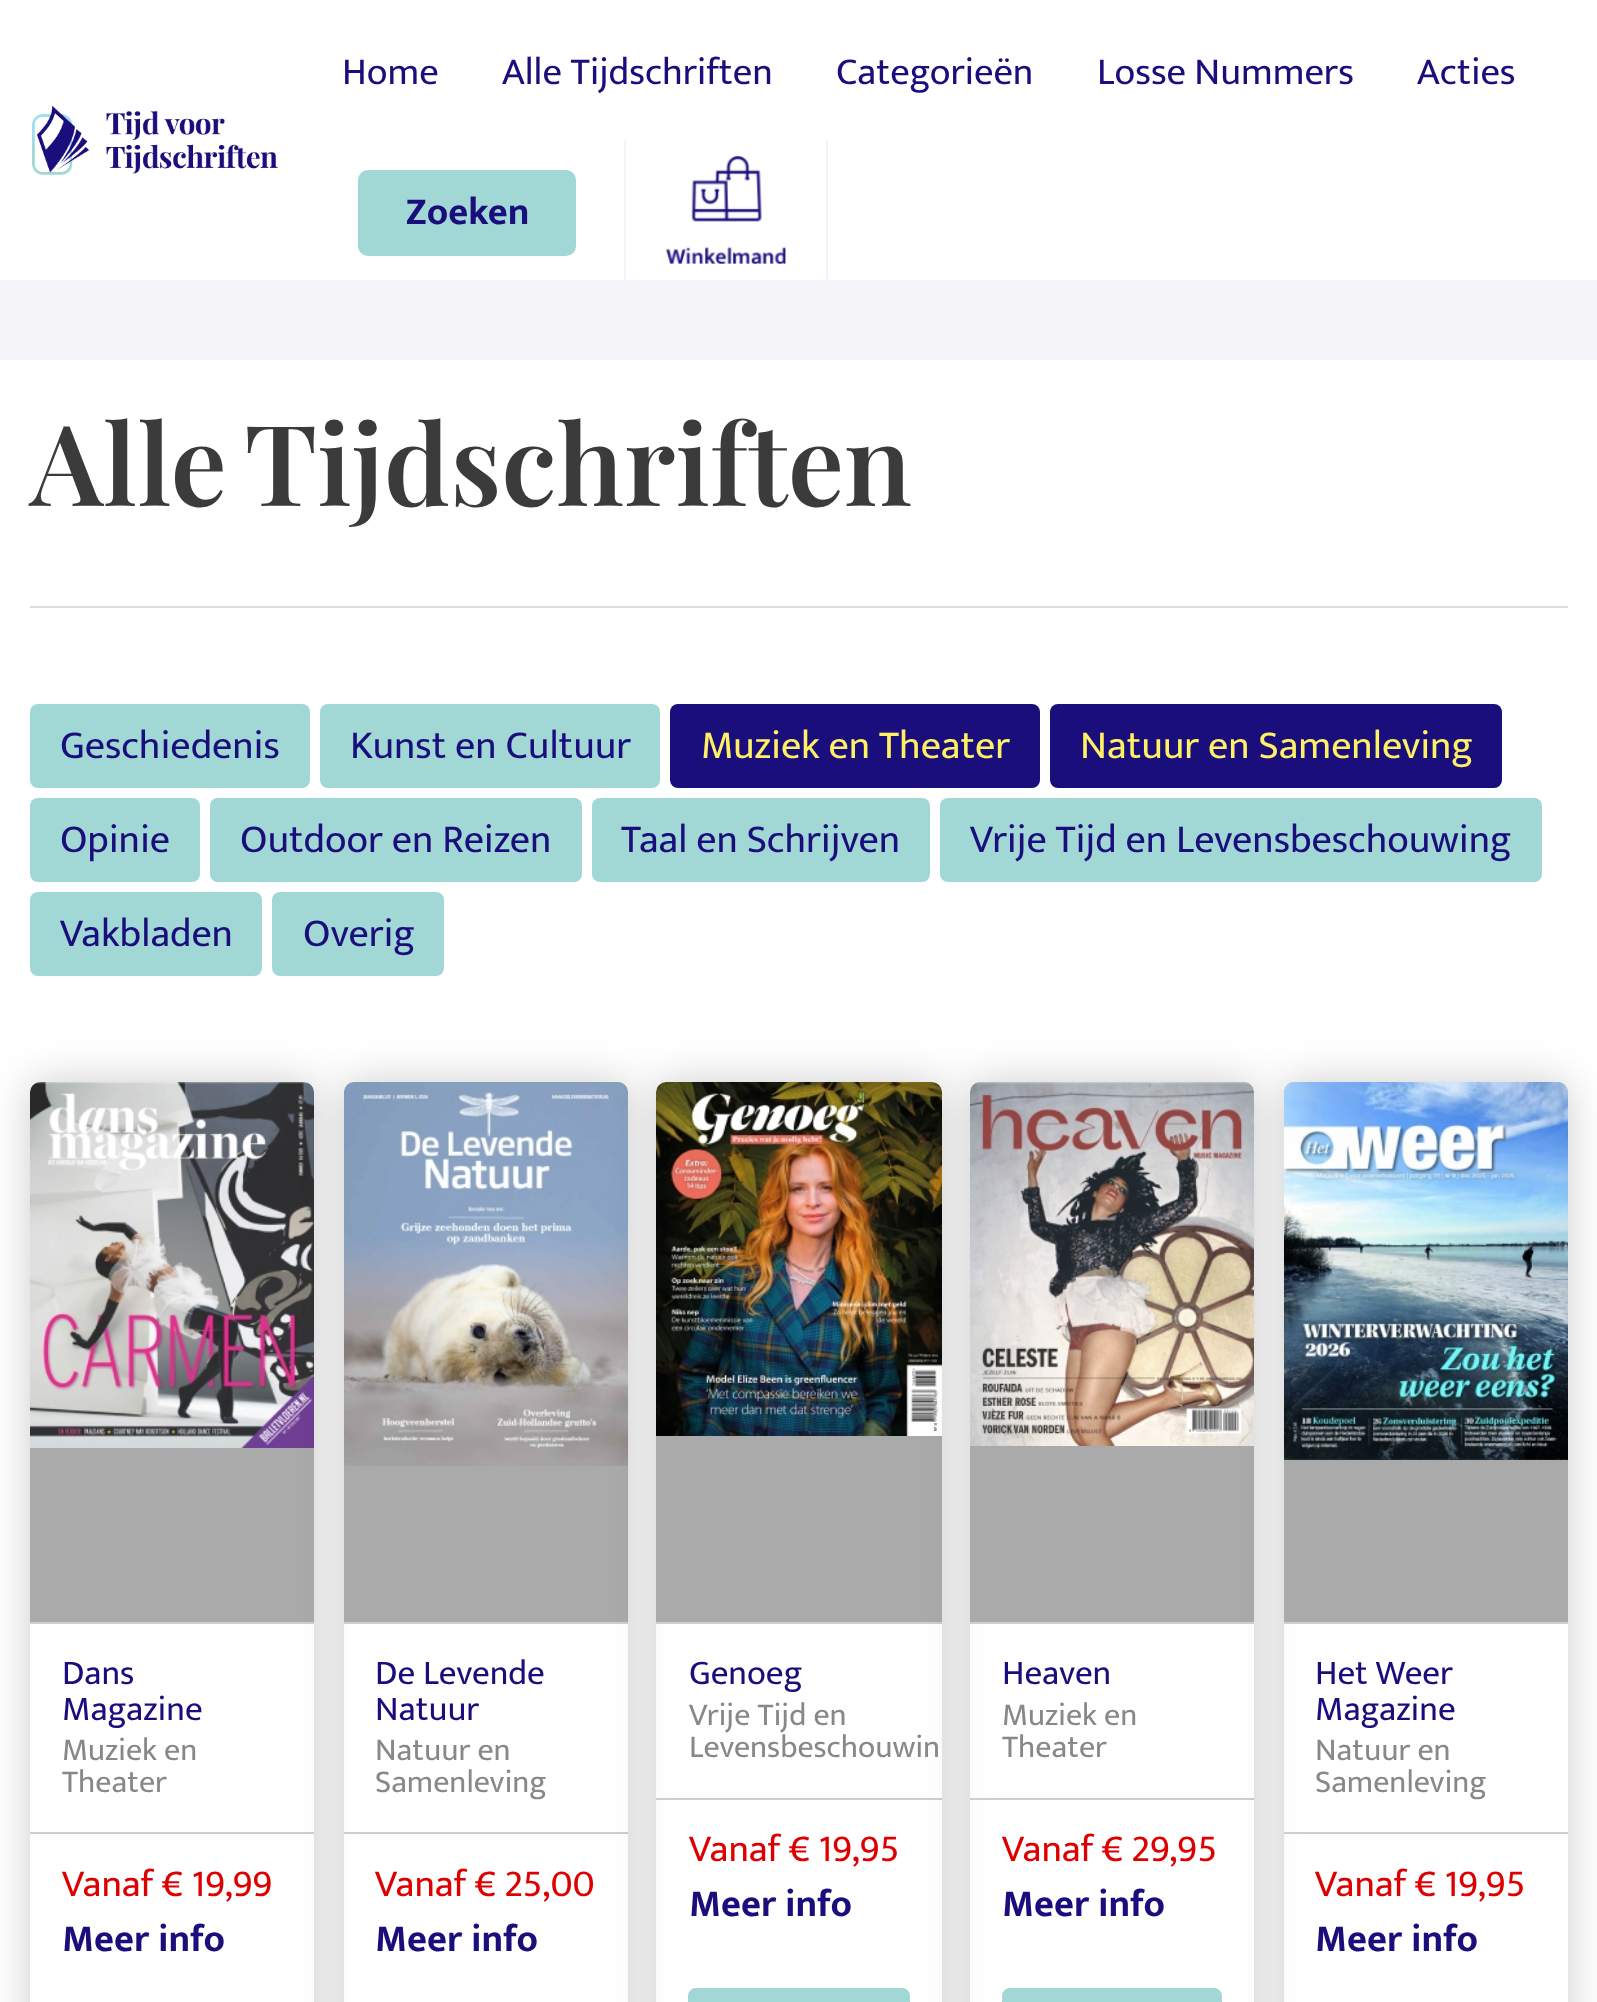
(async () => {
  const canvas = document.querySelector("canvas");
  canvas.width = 1597;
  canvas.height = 2002;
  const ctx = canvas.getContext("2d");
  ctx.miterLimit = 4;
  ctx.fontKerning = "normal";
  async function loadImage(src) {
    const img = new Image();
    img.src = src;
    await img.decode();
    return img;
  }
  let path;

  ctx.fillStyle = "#ffffff";
  ctx.fillRect(0, 0, 1597, 2002);
  ctx.fillStyle = "#f5f5f9";
  ctx.fillRect(0, 280, 1597, 80);
  ctx.drawImage(await loadImage("img/1.png"), 32, 105, 246, 70);
  ctx.fillRect(624, 140, 2, 140);
  ctx.fillStyle = "#a1d7d4";
  ctx.beginPath();
  ctx.roundRect(358, 170, 218, 86, 10);
  ctx.fill();
  ctx.fillStyle = "#f5f5f9";
  ctx.fillRect(826, 140, 2, 140);
  ctx.drawImage(await loadImage("img/2.png"), 666, 156, 120, 108);
  ctx.fillStyle = "#dddddd";
  ctx.fillRect(30, 606, 1538, 2);
  ctx.fillStyle = "#a1d7d4";
  ctx.beginPath();
  ctx.roundRect(30, 704, 280, 84, 8);
  ctx.fill();
  ctx.beginPath();
  ctx.roundRect(320, 704, 340, 84, 8);
  ctx.fill();
  ctx.fillStyle = "#1a0d7c";
  ctx.beginPath();
  ctx.roundRect(670, 704, 370, 84, 8);
  ctx.fill();
  ctx.beginPath();
  ctx.roundRect(1050, 704, 452, 84, 8);
  ctx.fill();
  ctx.fillStyle = "#a1d7d4";
  ctx.beginPath();
  ctx.roundRect(30, 798, 170, 84, 8);
  ctx.fill();
  ctx.beginPath();
  ctx.roundRect(210, 798, 372, 84, 8);
  ctx.fill();
  ctx.beginPath();
  ctx.roundRect(592, 798, 338, 84, 8);
  ctx.fill();
  ctx.beginPath();
  ctx.roundRect(940, 798, 602, 84, 8);
  ctx.fill();
  ctx.beginPath();
  ctx.roundRect(30, 892, 232, 84, 8);
  ctx.fill();
  ctx.beginPath();
  ctx.roundRect(272, 892, 172, 84, 8);
  ctx.fill();
  ctx.save();
  path = new Path2D("M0 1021H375V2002H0ZM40 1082H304C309.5 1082 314 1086.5 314 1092V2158C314 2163.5 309.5 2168 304 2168H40C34.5 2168 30 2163.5 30 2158V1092C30 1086.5 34.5 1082 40 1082Z");
  ctx.clip(path, "evenodd");
  ctx.fillStyle = "rgba(0, 0, 0, 0.2)";
  ctx.filter = "blur(20px)";
  ctx.beginPath();
  ctx.roundRect(30, 1082, 284, 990, 10);
  ctx.fill();
  ctx.filter = "none";
  ctx.restore();
  ctx.fillStyle = "#aaaaaa";
  ctx.beginPath();
  ctx.roundRect(30, 1082, 284, 540, [10, 10, 0, 0]);
  ctx.fill();
  ctx.drawImage(await loadImage("img/3.png"), 30, 1082, 284, 366);
  ctx.fillStyle = "#cecece";
  ctx.fillRect(30, 1622, 284, 2);
  ctx.fillRect(30, 1832, 284, 2);
  ctx.save();
  path = new Path2D("M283 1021H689V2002H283ZM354 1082H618C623.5 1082 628 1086.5 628 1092V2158C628 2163.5 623.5 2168 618 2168H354C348.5 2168 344 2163.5 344 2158V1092C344 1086.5 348.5 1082 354 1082Z");
  ctx.clip(path, "evenodd");
  ctx.fillStyle = "rgba(0, 0, 0, 0.2)";
  ctx.filter = "blur(20px)";
  ctx.beginPath();
  ctx.roundRect(344, 1082, 284, 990, 10);
  ctx.fill();
  ctx.filter = "none";
  ctx.restore();
  ctx.fillStyle = "#aaaaaa";
  ctx.beginPath();
  ctx.roundRect(344, 1082, 284, 540, [10, 10, 0, 0]);
  ctx.fill();
  ctx.drawImage(await loadImage("img/4.png"), 344, 1082, 284, 384);
  ctx.fillStyle = "#cecece";
  ctx.fillRect(344, 1622, 284, 2);
  ctx.fillRect(344, 1832, 284, 2);
  ctx.save();
  path = new Path2D("M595 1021H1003V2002H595ZM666 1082H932C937.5 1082 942 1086.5 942 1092V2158C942 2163.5 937.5 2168 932 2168H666C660.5 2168 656 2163.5 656 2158V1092C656 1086.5 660.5 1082 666 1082Z");
  ctx.clip(path, "evenodd");
  ctx.fillStyle = "rgba(0, 0, 0, 0.2)";
  ctx.filter = "blur(20px)";
  ctx.beginPath();
  ctx.roundRect(656, 1082, 286, 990, 10);
  ctx.fill();
  ctx.filter = "none";
  ctx.restore();
  ctx.fillStyle = "#aaaaaa";
  ctx.beginPath();
  ctx.roundRect(656, 1082, 286, 540, [10, 10, 0, 0]);
  ctx.fill();
  ctx.drawImage(await loadImage("img/5.png"), 656, 1082, 286, 354);
  ctx.fillStyle = "#cecece";
  ctx.fillRect(656, 1622, 286, 2);
  ctx.fillRect(656, 1798, 286, 2);
  ctx.fillStyle = "#a1d7d4";
  ctx.beginPath();
  ctx.roundRect(689, 1989, 220, 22, 7);
  ctx.fill();
  ctx.strokeStyle = "#a1d7d4";
  ctx.lineWidth = 2;
  ctx.stroke();
  ctx.save();
  path = new Path2D("M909 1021H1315V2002H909ZM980 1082H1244C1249.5 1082 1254 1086.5 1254 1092V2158C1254 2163.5 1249.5 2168 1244 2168H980C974.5 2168 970 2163.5 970 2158V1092C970 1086.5 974.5 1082 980 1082Z");
  ctx.clip(path, "evenodd");
  ctx.fillStyle = "rgba(0, 0, 0, 0.2)";
  ctx.filter = "blur(20px)";
  ctx.beginPath();
  ctx.roundRect(970, 1082, 284, 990, 10);
  ctx.fill();
  ctx.filter = "none";
  ctx.restore();
  ctx.fillStyle = "#aaaaaa";
  ctx.beginPath();
  ctx.roundRect(970, 1082, 284, 540, [10, 10, 0, 0]);
  ctx.fill();
  ctx.drawImage(await loadImage("img/6.png"), 970, 1082, 284, 364);
  ctx.fillStyle = "#cecece";
  ctx.fillRect(970, 1622, 284, 2);
  ctx.fillRect(970, 1798, 284, 2);
  ctx.fillStyle = "#a1d7d4";
  ctx.beginPath();
  ctx.roundRect(1003, 1989, 218, 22, 7);
  ctx.fill();
  ctx.stroke();
  ctx.save();
  path = new Path2D("M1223 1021H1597V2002H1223ZM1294 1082H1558C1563.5 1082 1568 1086.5 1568 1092V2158C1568 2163.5 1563.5 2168 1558 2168H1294C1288.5 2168 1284 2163.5 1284 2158V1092C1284 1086.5 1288.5 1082 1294 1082Z");
  ctx.clip(path, "evenodd");
  ctx.fillStyle = "rgba(0, 0, 0, 0.2)";
  ctx.filter = "blur(20px)";
  ctx.beginPath();
  ctx.roundRect(1284, 1082, 284, 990, 10);
  ctx.fill();
  ctx.filter = "none";
  ctx.restore();
  ctx.fillStyle = "#aaaaaa";
  ctx.beginPath();
  ctx.roundRect(1284, 1082, 284, 540, [10, 10, 0, 0]);
  ctx.fill();
  ctx.drawImage(await loadImage("img/7.png"), 1284, 1082, 284, 378);
  ctx.fillStyle = "#cecece";
  ctx.fillRect(1284, 1622, 284, 2);
  ctx.fillRect(1284, 1832, 284, 2);
  ctx.font = "38.5px Mukta";
  ctx.fillStyle = "#1a0d7c";
  for (const [text, x, y] of [
    ["Home", 342, 84],
    ["Alle Tijdschriften", 502, 84],
    ["Categorieën", 836, 84],
    ["Losse Nummers", 1097, 84],
    ["Acties", 1417, 84],
  ]) {
    ctx.fillText(text, x, y);
  }
  ctx.font = "bold 38.5px Mukta";
  ctx.fillText("Zoeken", 406, 224);
  ctx.wordSpacing = "-7px";
  ctx.font = "600 112px Playfair Display";
  ctx.fillStyle = "#3b3b3b";
  ctx.fillText("Alle Tijdschriften", 30, 506);
  ctx.wordSpacing = "0px";
  ctx.font = "40px Mukta";
  ctx.fillStyle = "#1a0d7c";
  ctx.fillText("Geschiedenis", 60, 758);
  ctx.fillText("Kunst en Cultuur", 350, 758);
  ctx.fillStyle = "#fff065";
  ctx.fillText("Muziek en Theater", 701, 758);
  ctx.fillText("Natuur en Samenleving", 1080, 758);
  ctx.fillStyle = "#1a0d7c";
  for (const [text, x, y] of [
    ["Opinie", 60, 852],
    ["Outdoor en Reizen", 240, 852],
    ["Taal en Schrijven", 621, 852],
    ["Vrije Tijd en Levensbeschouwing", 970, 852],
    ["Vakbladen", 60, 946],
    ["Overig", 303, 946],
  ]) {
    ctx.fillText(text, x, y);
  }
  ctx.font = "35px Mukta";
  ctx.fillText("Dans", 62, 1684);
  ctx.fillText("Magazine", 62, 1720);
  ctx.font = "32px Mukta";
  ctx.fillStyle = "#888888";
  ctx.fillText("Muziek en", 62, 1760);
  ctx.fillText("Theater", 62, 1792);
  ctx.font = "38.5px Mukta";
  ctx.fillStyle = "#de0000";
  ctx.fillText("Vanaf € 19,99", 62, 1896);
  ctx.font = "bold 38.5px Mukta";
  ctx.fillStyle = "#1a0d7c";
  ctx.fillText("Meer info", 62, 1951);
  ctx.font = "35px Mukta";
  ctx.fillText("De Levende", 375, 1684);
  ctx.fillText("Natuur", 375, 1720);
  ctx.font = "32px Mukta";
  ctx.fillStyle = "#888888";
  ctx.fillText("Natuur en", 375, 1760);
  ctx.fillText("Samenleving", 375, 1792);
  ctx.font = "38.5px Mukta";
  ctx.fillStyle = "#de0000";
  ctx.fillText("Vanaf € 25,00", 375, 1896);
  ctx.font = "bold 38.5px Mukta";
  ctx.fillStyle = "#1a0d7c";
  ctx.fillText("Meer info", 375, 1951);
  ctx.font = "35px Mukta";
  ctx.fillText("Genoeg", 689, 1684);
  ctx.font = "32px Mukta";
  ctx.fillStyle = "#888888";
  ctx.fillText("Vrije Tijd en", 689, 1725);
  ctx.fillText("Levensbeschouwin", 689, 1757);
  ctx.font = "38.5px Mukta";
  ctx.fillStyle = "#de0000";
  ctx.fillText("Vanaf € 19,95", 689, 1861);
  ctx.font = "bold 38.5px Mukta";
  ctx.fillStyle = "#1a0d7c";
  ctx.fillText("Meer info", 689, 1916);
  ctx.font = "35px Mukta";
  ctx.fillText("Heaven", 1002, 1684);
  ctx.font = "32px Mukta";
  ctx.fillStyle = "#888888";
  ctx.fillText("Muziek en", 1002, 1725);
  ctx.fillText("Theater", 1002, 1757);
  ctx.font = "38.5px Mukta";
  ctx.fillStyle = "#de0000";
  ctx.fillText("Vanaf € 29,95", 1002, 1861);
  ctx.font = "bold 38.5px Mukta";
  ctx.fillStyle = "#1a0d7c";
  ctx.fillText("Meer info", 1002, 1916);
  ctx.font = "35px Mukta";
  ctx.fillText("Het Weer", 1315, 1684);
  ctx.fillText("Magazine", 1315, 1720);
  ctx.font = "32px Mukta";
  ctx.fillStyle = "#888888";
  ctx.fillText("Natuur en", 1315, 1760);
  ctx.fillText("Samenleving", 1315, 1792);
  ctx.font = "38.5px Mukta";
  ctx.fillStyle = "#de0000";
  ctx.fillText("Vanaf € 19,95", 1315, 1896);
  ctx.font = "bold 38.5px Mukta";
  ctx.fillStyle = "#1a0d7c";
  ctx.fillText("Meer info", 1315, 1951);
})();
